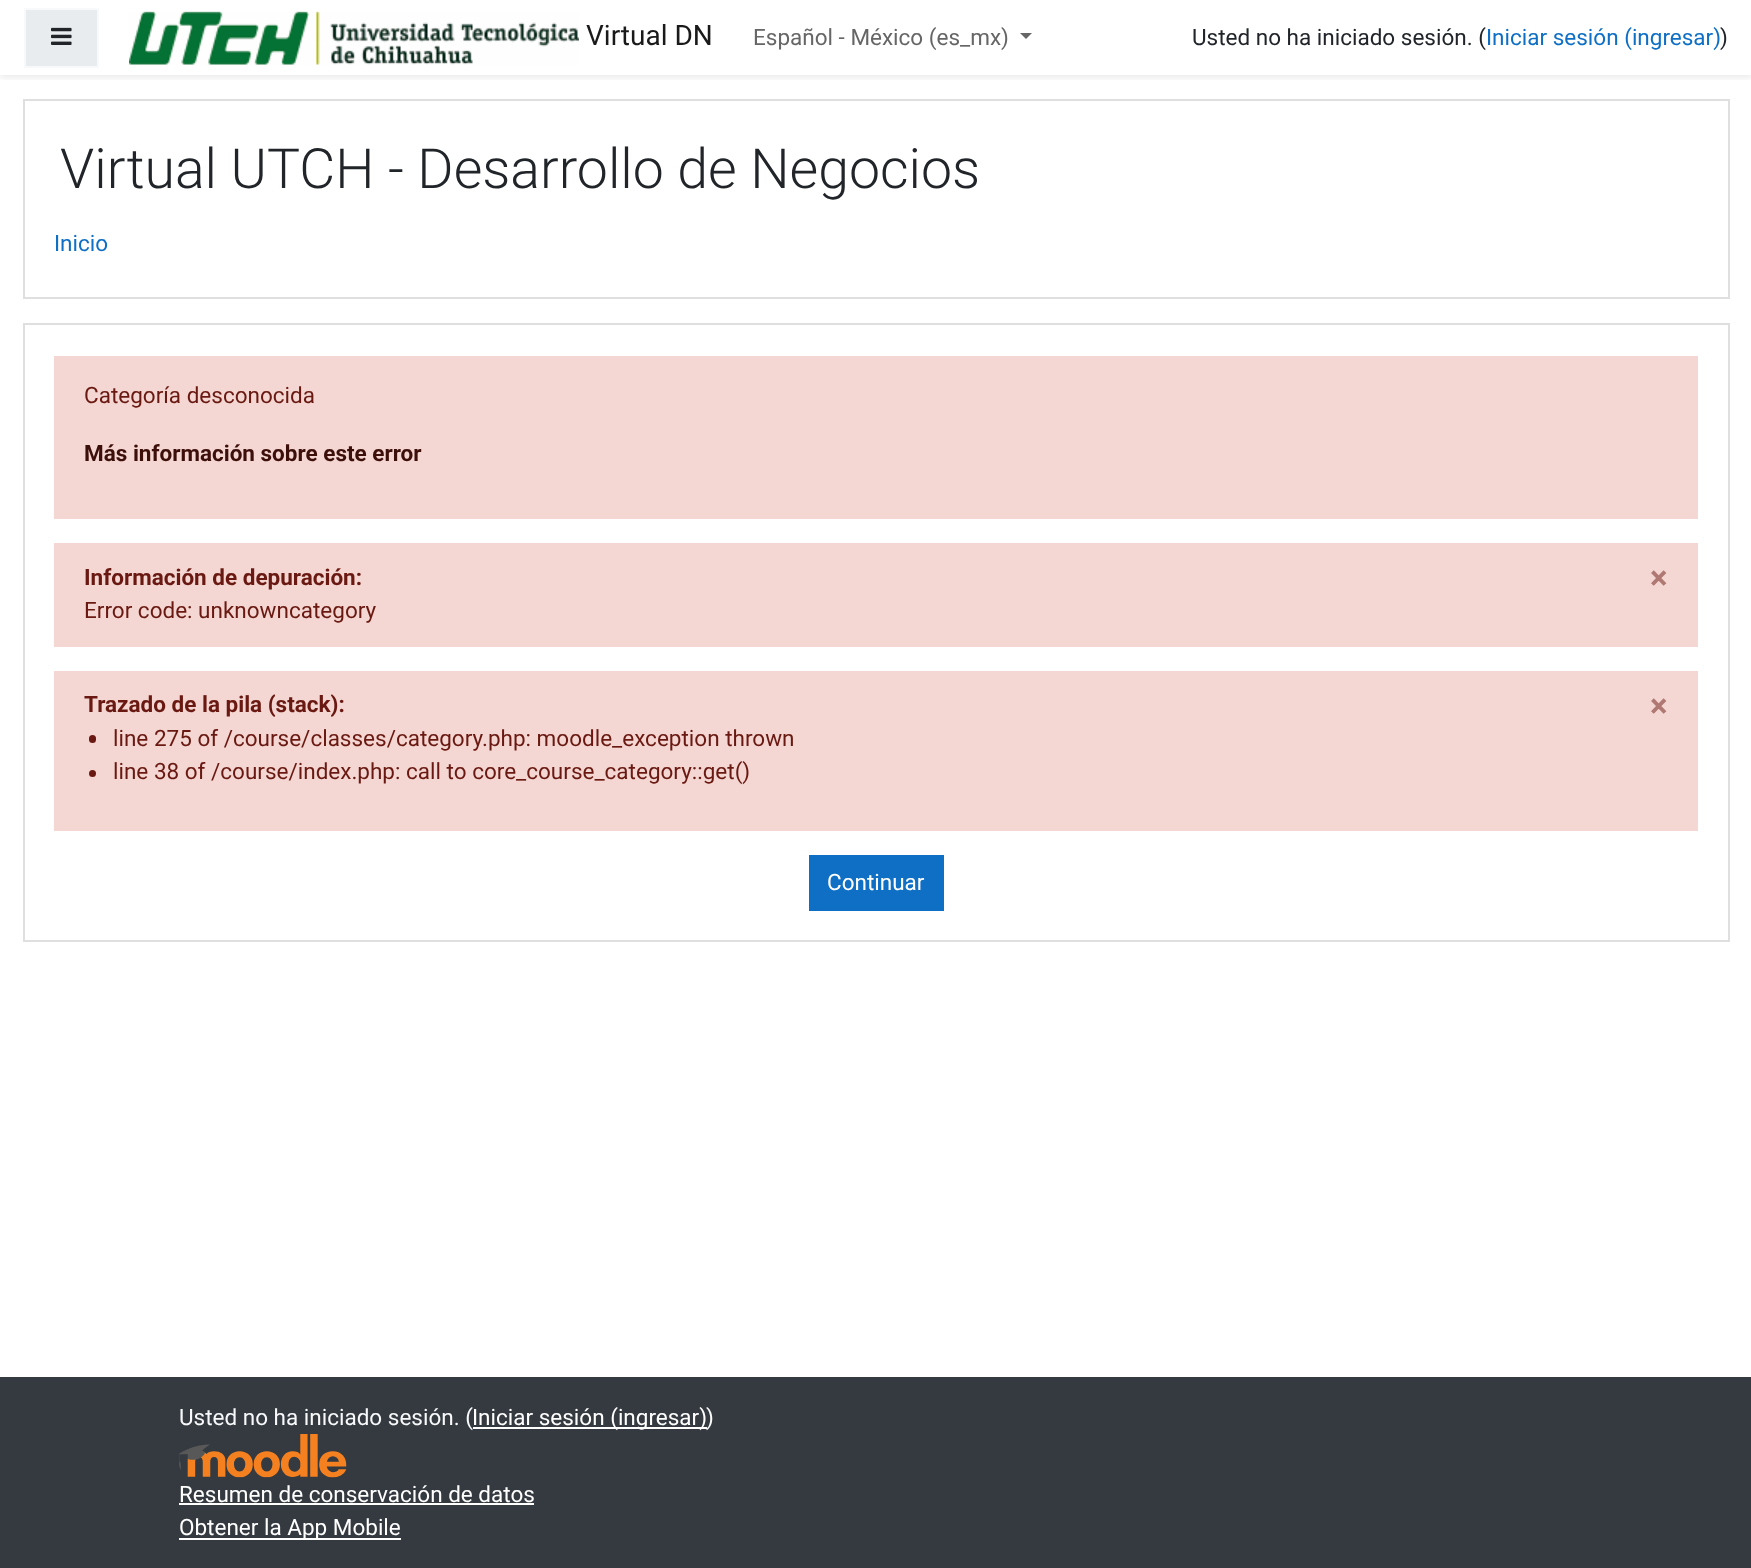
(async () => {
  const canvas = document.querySelector("canvas");
  canvas.width = 1751;
  canvas.height = 1568;
  const ctx = canvas.getContext("2d");
  ctx.miterLimit = 4;
  ctx.fontKerning = "normal";
  async function loadImage(src) {
    const img = new Image();
    img.src = src;
    await img.decode();
    return img;
  }
  let path;

  ctx.fillStyle = "#ffffff";
  ctx.fillRect(0, 0, 1751, 1568);
  ctx.save();
  ctx.beginPath();
  ctx.rect(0, 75, 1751, 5);
  ctx.clip();
  ctx.fillStyle = "rgba(0, 0, 0, 0.08)";
  ctx.filter = "blur(3px)";
  ctx.beginPath();
  ctx.rect(0, 3, 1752, 75);
  ctx.fill();
  ctx.filter = "none";
  ctx.restore();
  ctx.fillStyle = "#e9ecef";
  ctx.beginPath();
  ctx.rect(25, 9, 73, 58);
  ctx.fill();
  ctx.strokeStyle = "#f8f9fa";
  ctx.lineWidth = 2;
  ctx.stroke();
  ctx.drawImage(await loadImage("img/1.png"), 51, 27, 21, 18);
  ctx.drawImage(await loadImage("img/2.png"), 129, 11, 450, 54);
  ctx.fillStyle = "#666666";
  path = new Path2D("M1020 33H1032L1026 39Z");
  ctx.fill(path);
  ctx.strokeStyle = "#dfdfdf";
  ctx.strokeRect(24, 100, 1705, 198);
  ctx.strokeRect(24, 324, 1705, 617);
  for (const [x, y, w, h, color] of [
    [54, 356, 1644, 163, "#f4d6d2"],
    [54, 543, 1644, 104, "#f4d6d2"],
    [54, 671, 1644, 160, "#f4d6d2"],
  ]) {
    ctx.fillStyle = color;
    ctx.fillRect(x, y, w, h);
  }
  ctx.fillStyle = "#691911";
  ctx.beginPath();
  ctx.roundRect(89, 735, 7, 8, 3.5);
  ctx.fill();
  ctx.beginPath();
  ctx.arc(92.5, 773.5, 3.5, 0, Math.PI * 2);
  ctx.fill();
  for (const [x, y, w, h, color] of [
    [809, 855, 135, 56, "#0f6fc5"],
    [0, 1377, 1751, 191, "#343a40"],
    [473, 1427, 234, 2, "#ffffff"],
  ]) {
    ctx.fillStyle = color;
    ctx.fillRect(x, y, w, h);
  }
  ctx.drawImage(await loadImage("img/3.png"), 179, 1434, 168, 44);
  ctx.fillRect(179, 1503, 355, 2);
  ctx.fillRect(179, 1538, 222, 2);
  ctx.font = "28px Roboto";
  ctx.fillStyle = "#1a1a1a";
  ctx.fillText("Virtual DN", 586, 45);
  ctx.font = "22.5px Roboto";
  ctx.fillStyle = "#666666";
  ctx.fillText("Español - México (es_mx)", 753, 45);
  ctx.fillStyle = "#212529";
  ctx.fillText("Usted no ha iniciado sesión. (", 1192, 45);
  ctx.fillStyle = "#0f6fc5";
  ctx.fillText("Iniciar sesión (ingresar)", 1486, 45);
  ctx.fillStyle = "#212529";
  ctx.fillText(")", 1720, 45);
  ctx.font = "300 55.4px Roboto";
  ctx.fillText("Virtual UTCH - Desarrollo de Negocios", 60, 188);
  ctx.font = "22.5px Roboto";
  ctx.fillStyle = "#0f6fc5";
  ctx.fillText("Inicio", 54, 251);
  ctx.fillStyle = "#691911";
  ctx.fillText("Categoría desconocida", 84, 403);
  ctx.font = "bold 22.5px Roboto";
  ctx.fillStyle = "#3d0f0a";
  ctx.fillText("Más información sobre este error", 84, 461);
  ctx.fillStyle = "#691911";
  ctx.fillText("Información de depuración:", 84, 585);
  ctx.font = "bold 33px Roboto";
  ctx.fillStyle = "#af7872";
  ctx.fillText("×", 1650, 589);
  ctx.font = "22.5px Roboto";
  ctx.fillStyle = "#691911";
  ctx.fillText("Error code: unknowncategory", 84, 618);
  ctx.font = "bold 22.5px Roboto";
  ctx.fillText("Trazado de la pila (stack):", 84, 712);
  ctx.font = "bold 33px Roboto";
  ctx.fillStyle = "#af7872";
  ctx.fillText("×", 1650, 717);
  ctx.font = "22.5px Roboto";
  ctx.fillStyle = "#691911";
  ctx.fillText("line 275 of /course/classes/category.php: moodle_exception thrown", 113, 746);
  ctx.fillText("line 38 of /course/index.php: call to core_course_category::get()", 113, 779);
  ctx.fillStyle = "#ffffff";
  ctx.fillText("Continuar", 827, 890);
  ctx.fillStyle = "#f8f9fa";
  ctx.fillText("Usted no ha iniciado sesión. (", 179, 1425);
  ctx.fillStyle = "#ffffff";
  ctx.fillText("Iniciar sesión (ingresar)", 472, 1425);
  ctx.fillStyle = "#f8f9fa";
  ctx.fillText(")", 706, 1425);
  ctx.fillStyle = "#ffffff";
  ctx.fillText("Resumen de conservación de datos", 179, 1502);
  ctx.fillText("Obtener la App Mobile", 179, 1535);
})();
